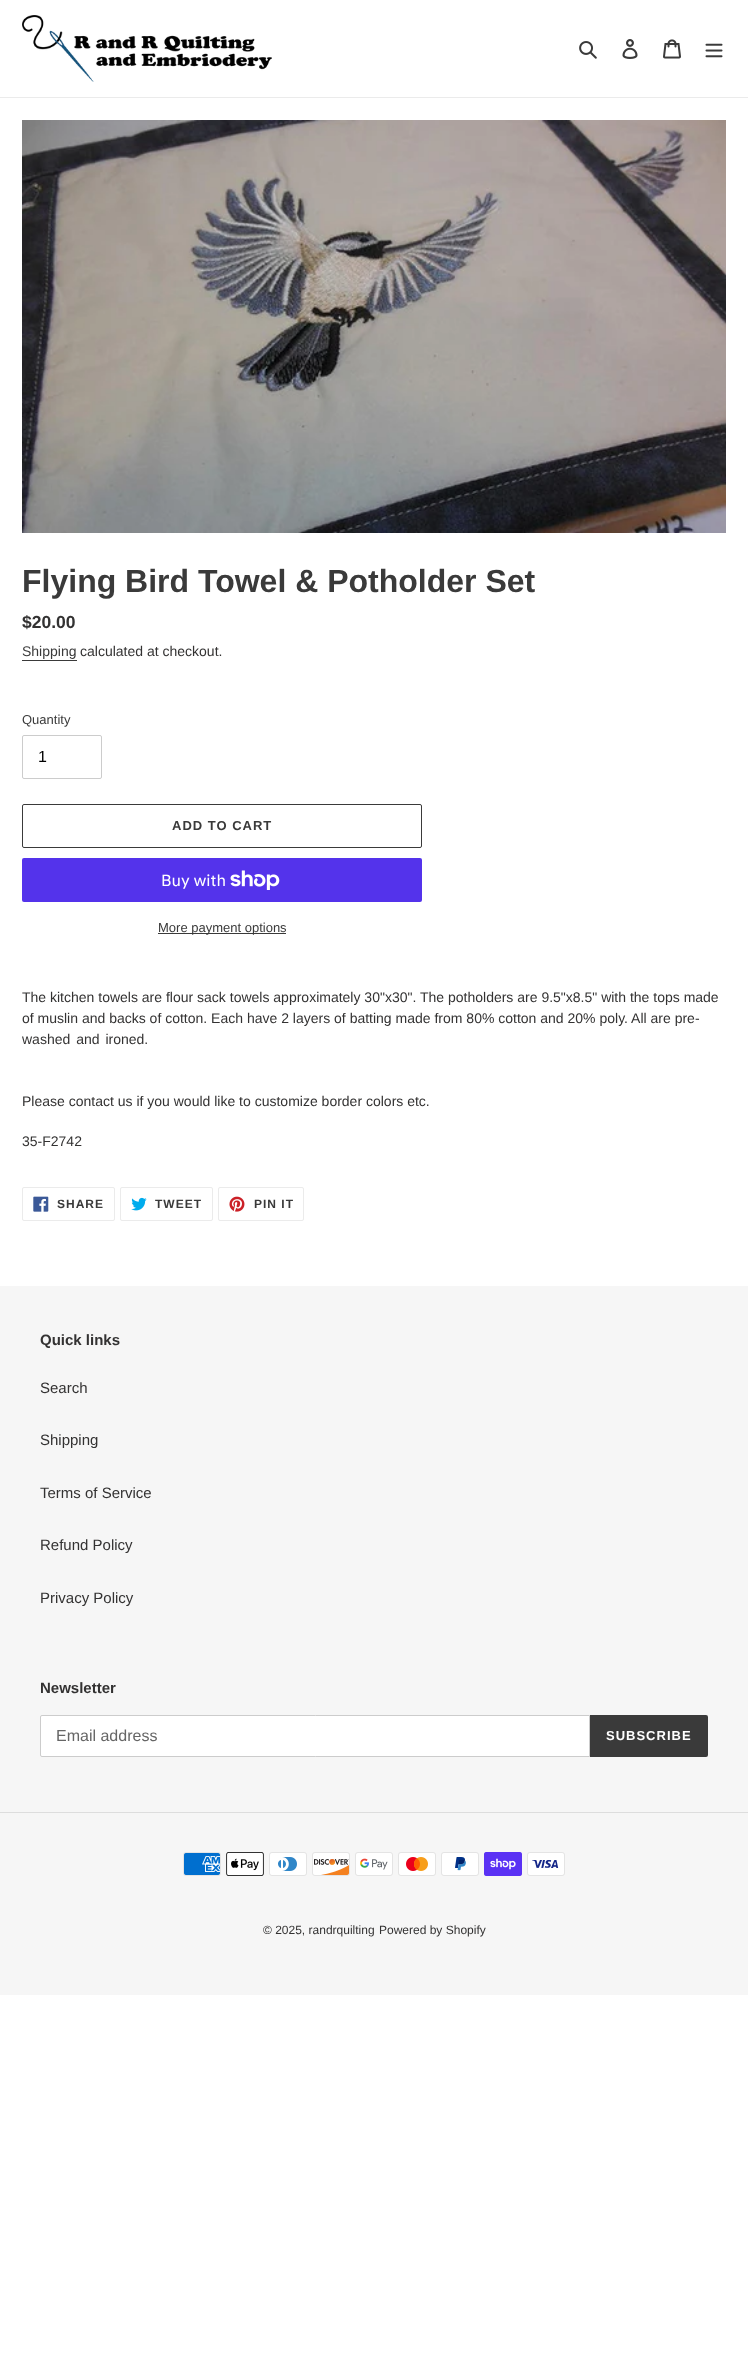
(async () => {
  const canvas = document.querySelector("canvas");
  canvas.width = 748;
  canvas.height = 2353;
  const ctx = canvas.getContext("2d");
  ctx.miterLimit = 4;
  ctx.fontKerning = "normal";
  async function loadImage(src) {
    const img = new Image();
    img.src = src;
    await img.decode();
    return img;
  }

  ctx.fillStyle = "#ffffff";
  ctx.fillRect(0, 0, 748, 2353);
  ctx.fillStyle = "#ebebeb";
  ctx.fillRect(0, 97, 748, 1);
  ctx.drawImage(await loadImage("img/1.png"), 22, 15, 250, 67);
  ctx.drawImage(await loadImage("img/2.png"), 579, 41, 18, 18);
  ctx.drawImage(await loadImage("img/3.png"), 622, 39, 16, 20);
  ctx.drawImage(await loadImage("img/4.png"), 663, 39, 18, 20);
  ctx.drawImage(await loadImage("img/5.png"), 705, 43, 18, 15);
  ctx.drawImage(await loadImage("img/6.png"), 22, 120, 704, 413);
  ctx.fillStyle = "#3a3a3a";
  ctx.fillRect(22, 660, 55, 1);
  ctx.beginPath();
  ctx.roundRect(22.5, 735.5, 79, 43, 1.5);
  ctx.strokeStyle = "#cccccc";
  ctx.stroke();
  ctx.beginPath();
  ctx.roundRect(22.5, 804.5, 399, 43, 1.5);
  ctx.strokeStyle = "#3a3a3a";
  ctx.stroke();
  ctx.fillStyle = "#5433eb";
  ctx.beginPath();
  ctx.roundRect(22, 858, 400, 44, 2);
  ctx.fill();
  ctx.drawImage(await loadImage("img/7.png"), 230, 870, 50, 20);
  ctx.fillStyle = "#3a3a3a";
  ctx.fillRect(158, 933, 128, 1);
  ctx.beginPath();
  ctx.roundRect(22.5, 1187.5, 92, 33, 1.5);
  ctx.strokeStyle = "#ebebeb";
  ctx.stroke();
  ctx.drawImage(await loadImage("img/8.png"), 33, 1196, 16, 16);
  ctx.beginPath();
  ctx.roundRect(120.5, 1187.5, 92, 33, 1.5);
  ctx.stroke();
  ctx.drawImage(await loadImage("img/9.png"), 131, 1197, 16, 14);
  ctx.beginPath();
  ctx.roundRect(218.5, 1187.5, 85, 33, 1.5);
  ctx.stroke();
  ctx.drawImage(await loadImage("img/10.png"), 229, 1196, 16, 16);
  ctx.fillStyle = "#f6f6f6";
  ctx.fillRect(0, 1286, 748, 709);
  ctx.fillStyle = "#ffffff";
  ctx.beginPath();
  ctx.roundRect(40.5, 1715.5, 549, 41, [1.5, 0, 0, 1.5]);
  ctx.fill();
  ctx.strokeStyle = "#cccccc";
  ctx.stroke();
  ctx.fillStyle = "#3a3a3a";
  ctx.beginPath();
  ctx.roundRect(590, 1715, 118, 42, [0, 2, 2, 0]);
  ctx.fill();
  ctx.fillStyle = "#dddddd";
  ctx.fillRect(0, 1812, 748, 1);
  ctx.drawImage(await loadImage("img/11.png"), 183, 1852, 38, 24);
  ctx.drawImage(await loadImage("img/12.png"), 226, 1852, 38, 24);
  ctx.drawImage(await loadImage("img/13.png"), 269, 1852, 38, 24);
  ctx.drawImage(await loadImage("img/14.png"), 312, 1852, 38, 24);
  ctx.drawImage(await loadImage("img/15.png"), 355, 1852, 38, 24);
  ctx.drawImage(await loadImage("img/16.png"), 398, 1852, 38, 24);
  ctx.drawImage(await loadImage("img/17.png"), 441, 1852, 38, 24);
  ctx.drawImage(await loadImage("img/18.png"), 484, 1852, 38, 24);
  ctx.drawImage(await loadImage("img/19.png"), 527, 1852, 38, 24);
  ctx.font = "bold 32px Liberation Sans";
  ctx.fillStyle = "#3a3a3a";
  ctx.fillText("Flying Bird Towel & Potholder Set", 22, 592);
  ctx.font = "bold 17.5px Liberation Sans";
  ctx.fillStyle = "#333232";
  ctx.fillText("$20.00", 22, 628);
  ctx.font = "14px Liberation Sans";
  ctx.fillStyle = "#3a3a3a";
  ctx.fillText("Shipping", 22, 656);
  ctx.fillStyle = "#333232";
  ctx.fillText("calculated at checkout.", 80, 656);
  ctx.font = "13px Liberation Sans";
  ctx.fillStyle = "#3a3a3a";
  ctx.fillText("Quantity", 22, 724);
  ctx.font = "16px Liberation Sans";
  ctx.fillStyle = "#000000";
  ctx.fillText("1", 38, 762);
  ctx.letterSpacing = "1px";
  ctx.font = "bold 13px Liberation Sans";
  ctx.fillStyle = "#3a3a3a";
  ctx.fillText("ADD TO CART", 172, 830);
  ctx.letterSpacing = "0px";
  ctx.font = "16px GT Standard";
  ctx.fillStyle = "#ffffff";
  ctx.fillText("Buy with", 161, 886);
  ctx.font = "13px Liberation Sans";
  ctx.fillStyle = "#3a3a3a";
  ctx.fillText("More payment options", 158, 932);
  ctx.font = "14px Liberation Sans";
  ctx.fillStyle = "#333232";
  ctx.fillText("The kitchen towels are flour sack towels approximately 30\"x30\". The potholders are 9.5\"x8.5\" with the tops made", 22, 1002);
  ctx.fillText("of muslin and backs of cotton. Each have 2 layers of batting made from 80% cotton and 20% poly. All are pre-", 22, 1023);
  ctx.wordSpacing = "2px";
  ctx.fillText("washed and ironed.", 22, 1044);
  ctx.wordSpacing = "0px";
  ctx.fillText("Please contact us if you would like to customize border colors etc.", 22, 1106);
  ctx.fillText("35-F2742", 22, 1146);
  ctx.letterSpacing = "1px";
  ctx.font = "bold 12px Liberation Sans";
  ctx.fillStyle = "#3a3a3a";
  for (const [text, x, y] of [
    ["SHARE", 57, 1208],
    ["TWEET", 155, 1208],
    ["PIN IT", 254, 1208],
  ]) {
    ctx.fillText(text, x, y);
  }
  ctx.letterSpacing = "0px";
  ctx.font = "bold 15px Liberation Sans";
  ctx.fillStyle = "#333232";
  ctx.fillText("Quick links", 40, 1345);
  ctx.font = "15px Liberation Sans";
  for (const [text, x, y] of [
    ["Search", 40, 1393],
    ["Shipping", 40, 1445],
    ["Terms of Service", 40, 1498],
    ["Refund Policy", 40, 1550],
    ["Privacy Policy", 40, 1603],
  ]) {
    ctx.fillText(text, x, y);
  }
  ctx.font = "bold 15px Liberation Sans";
  ctx.fillText("Newsletter", 40, 1693);
  ctx.font = "16px Liberation Sans";
  ctx.fillStyle = "#666666";
  ctx.fillText("Email address", 56, 1741);
  ctx.letterSpacing = "1px";
  ctx.font = "bold 13px Liberation Sans";
  ctx.fillStyle = "#ffffff";
  ctx.fillText("SUBSCRIBE", 606, 1740);
  ctx.letterSpacing = "0px";
  ctx.font = "12px Liberation Sans";
  ctx.fillStyle = "#333232";
  ctx.fillText("© 2025, randrquilting", 263, 1934);
  ctx.fillText("Powered by Shopify", 379, 1934);
})();
